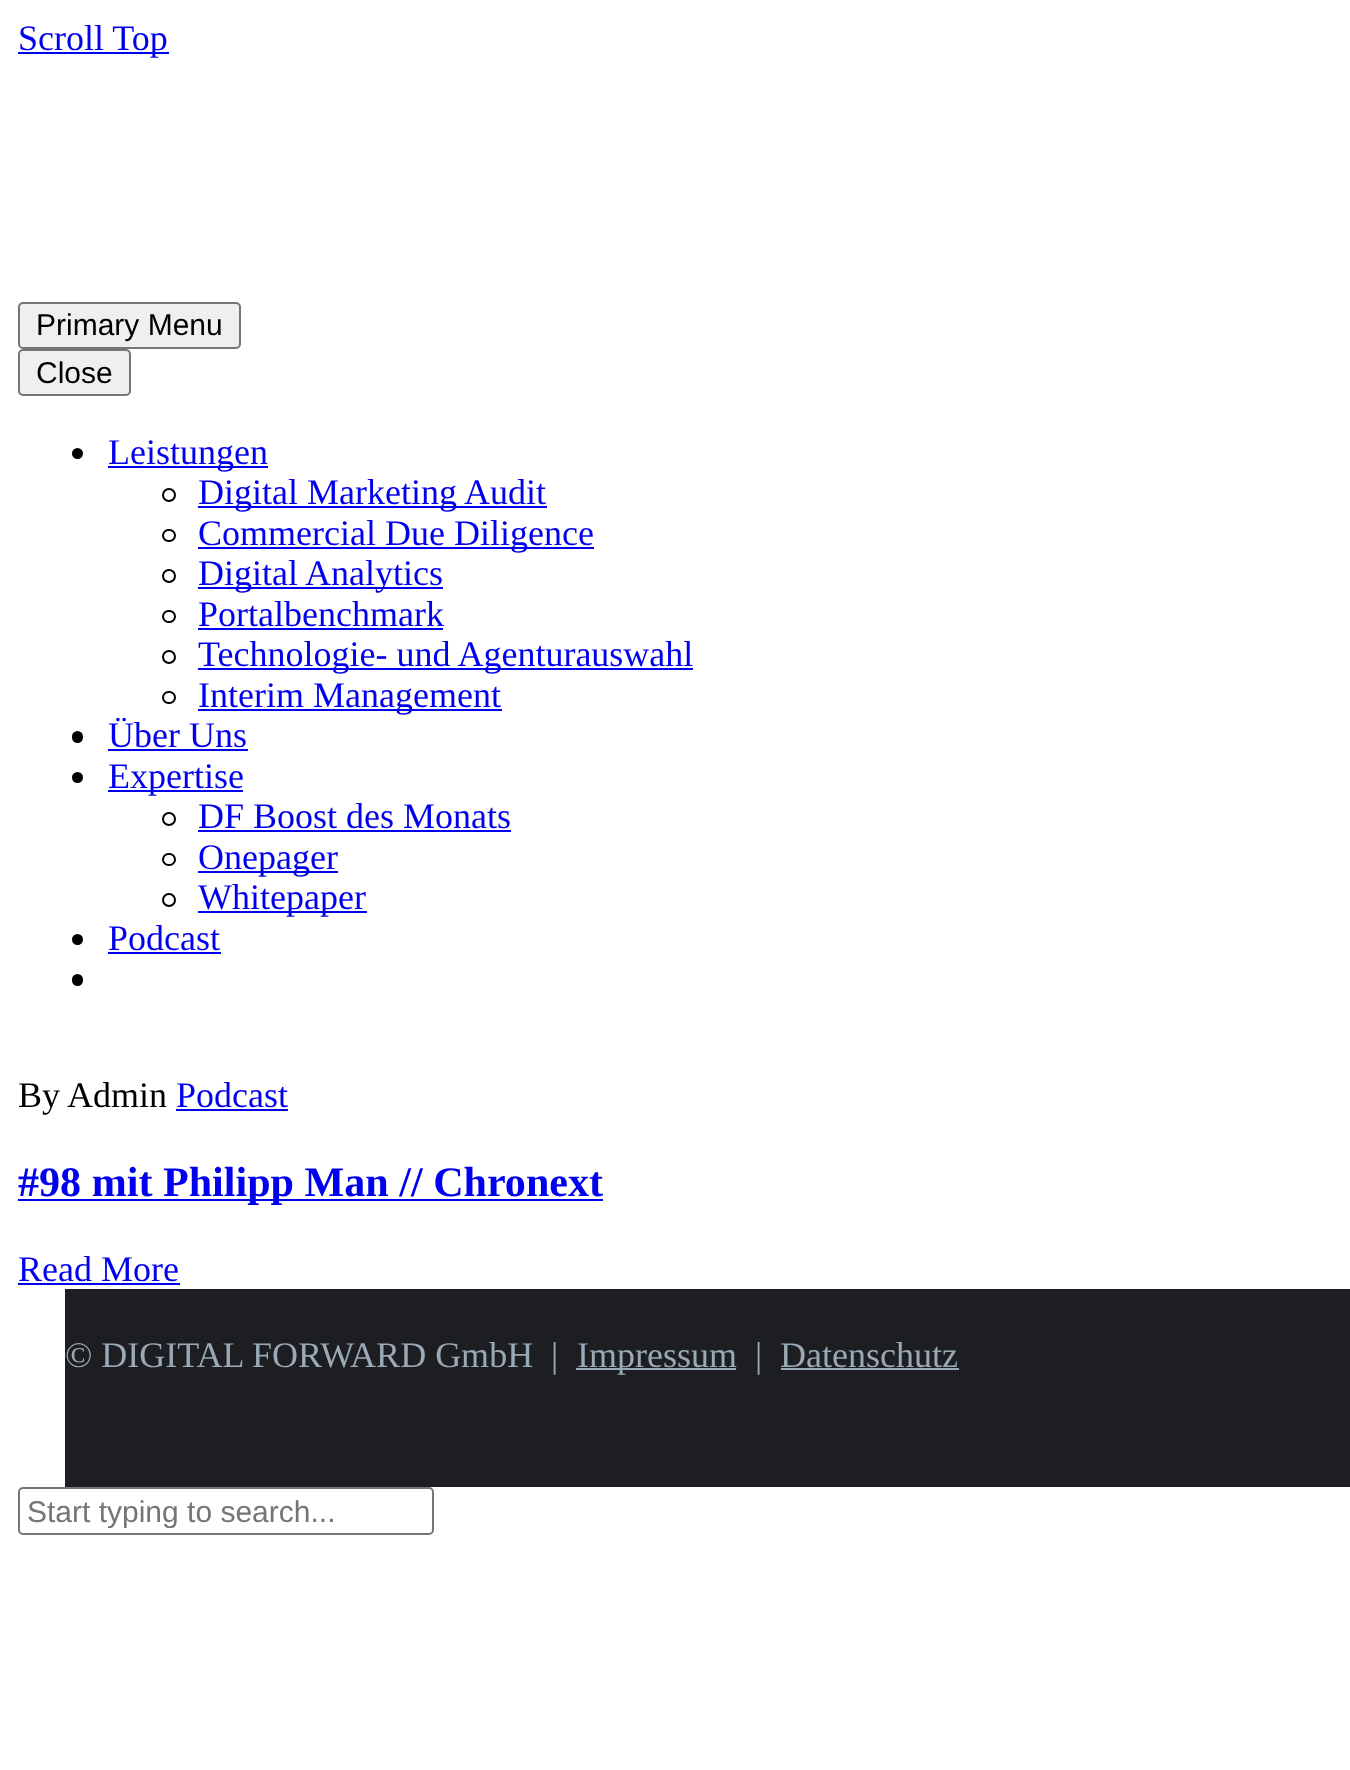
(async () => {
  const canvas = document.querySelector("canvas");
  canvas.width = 1350;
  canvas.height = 1770;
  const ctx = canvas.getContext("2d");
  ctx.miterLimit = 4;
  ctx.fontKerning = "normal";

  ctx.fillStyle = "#ffffff";
  ctx.fillRect(0, 0, 1350, 1770);
  ctx.fillStyle = "#0000ee";
  ctx.fillRect(18, 52, 151, 2);
  ctx.fillStyle = "#efefef";
  ctx.beginPath();
  ctx.roundRect(19, 303, 221, 45, 4);
  ctx.fill();
  ctx.strokeStyle = "#767676";
  ctx.lineWidth = 2;
  ctx.stroke();
  ctx.beginPath();
  ctx.roundRect(19, 350, 111, 45, 4);
  ctx.fill();
  ctx.stroke();
  ctx.fillStyle = "#000000";
  ctx.beginPath();
  ctx.arc(77.5, 453.5, 5.5, 0, Math.PI * 2);
  ctx.fill();
  ctx.fillStyle = "#0000ee";
  ctx.fillRect(108, 466, 160, 2);
  ctx.beginPath();
  ctx.arc(169, 495, 6, 0, Math.PI * 2);
  ctx.strokeStyle = "#000000";
  ctx.stroke();
  ctx.fillRect(198, 506, 349, 2);
  ctx.beginPath();
  ctx.roundRect(163, 530, 12, 11, 5.5);
  ctx.stroke();
  ctx.fillRect(198, 547, 396, 2);
  ctx.beginPath();
  ctx.arc(169, 576, 6, 0, Math.PI * 2);
  ctx.stroke();
  ctx.fillRect(198, 587, 245, 2);
  ctx.beginPath();
  ctx.roundRect(163, 611, 12, 11, 5.5);
  ctx.stroke();
  ctx.fillRect(198, 628, 245, 2);
  ctx.beginPath();
  ctx.arc(169, 657, 6, 0, Math.PI * 2);
  ctx.stroke();
  ctx.fillRect(198, 668, 495, 2);
  ctx.beginPath();
  ctx.roundRect(163, 692, 12, 11, 5.5);
  ctx.stroke();
  ctx.fillRect(198, 709, 304, 2);
  ctx.fillStyle = "#000000";
  ctx.beginPath();
  ctx.roundRect(72, 731, 11, 12, 5.5);
  ctx.fill();
  ctx.fillStyle = "#0000ee";
  ctx.fillRect(108, 749, 140, 2);
  ctx.fillStyle = "#000000";
  ctx.beginPath();
  ctx.arc(77.5, 777.5, 5.5, 0, Math.PI * 2);
  ctx.fill();
  ctx.fillStyle = "#0000ee";
  ctx.fillRect(108, 790, 135, 2);
  ctx.beginPath();
  ctx.arc(169, 819, 6, 0, Math.PI * 2);
  ctx.stroke();
  ctx.fillRect(198, 830, 313, 2);
  ctx.beginPath();
  ctx.roundRect(163, 854, 12, 11, 5.5);
  ctx.stroke();
  ctx.fillRect(198, 871, 140, 2);
  ctx.beginPath();
  ctx.arc(169, 900, 6, 0, Math.PI * 2);
  ctx.stroke();
  ctx.fillRect(198, 911, 169, 2);
  ctx.fillStyle = "#000000";
  ctx.beginPath();
  ctx.arc(77.5, 939.5, 5.5, 0, Math.PI * 2);
  ctx.fill();
  ctx.fillStyle = "#0000ee";
  ctx.fillRect(108, 952, 113, 2);
  ctx.fillStyle = "#000000";
  ctx.beginPath();
  ctx.roundRect(72, 974, 11, 12, 5.5);
  ctx.fill();
  for (const [x, y, w, h, color] of [
    [176, 1109, 112, 2, "#0000ee"],
    [18, 1199, 585, 2, "#0000ee"],
    [18, 1283, 162, 2, "#0000ee"],
    [65, 1289, 1285, 198, "#1d1e22"],
    [576, 1368, 160, 2, "#99a9b5"],
    [781, 1368, 178, 2, "#99a9b5"],
  ]) {
    ctx.fillStyle = color;
    ctx.fillRect(x, y, w, h);
  }
  ctx.beginPath();
  ctx.roundRect(19, 1488, 414, 46, 4);
  ctx.strokeStyle = "#767676";
  ctx.stroke();
  ctx.font = "36px Liberation Serif";
  ctx.fillStyle = "#0000ee";
  ctx.fillText("Scroll Top", 18, 50);
  ctx.font = "30px Liberation Sans";
  ctx.fillStyle = "#000000";
  ctx.fillText("Primary Menu", 36, 335);
  ctx.fillText("Close", 36, 383);
  ctx.font = "36px Liberation Serif";
  ctx.fillStyle = "#0000ee";
  for (const [text, x, y] of [
    ["Leistungen", 108, 464],
    ["Digital Marketing Audit", 198, 504],
    ["Commercial Due Diligence", 198, 545],
    ["Digital Analytics", 198, 585],
    ["Portalbenchmark", 198, 626],
    ["Technologie- und Agenturauswahl", 198, 666],
    ["Interim Management", 198, 707],
    ["Über Uns", 108, 747],
    ["Expertise", 108, 788],
    ["DF Boost des Monats", 198, 828],
    ["Onepager", 198, 869],
    ["Whitepaper", 198, 909],
    ["Podcast", 108, 950],
  ]) {
    ctx.fillText(text, x, y);
  }
  ctx.fillStyle = "#000000";
  ctx.fillText("By Admin", 18, 1107);
  ctx.fillStyle = "#0000ee";
  ctx.fillText("Podcast", 176, 1107);
  ctx.font = "bold 42.1px Liberation Serif";
  ctx.fillText("#98 mit Philipp Man // Chronext", 18, 1196);
  ctx.font = "36px Liberation Serif";
  ctx.fillText("Read More", 18, 1281);
  ctx.fillStyle = "#99a9b5";
  for (const [text, x, y] of [
    ["© DIGITAL FORWARD GmbH  |", 65, 1367],
    ["Impressum", 577, 1367],
    ["|", 755, 1367],
    ["Datenschutz", 780, 1367],
  ]) {
    ctx.fillText(text, x, y);
  }
  ctx.save();
  ctx.beginPath();
  ctx.rect(27, 1494, 398, 34);
  ctx.clip();
  ctx.font = "30px Liberation Sans";
  ctx.fillStyle = "#757575";
  ctx.fillText("Start typing to search...", 27, 1522);
  ctx.restore();
})();
